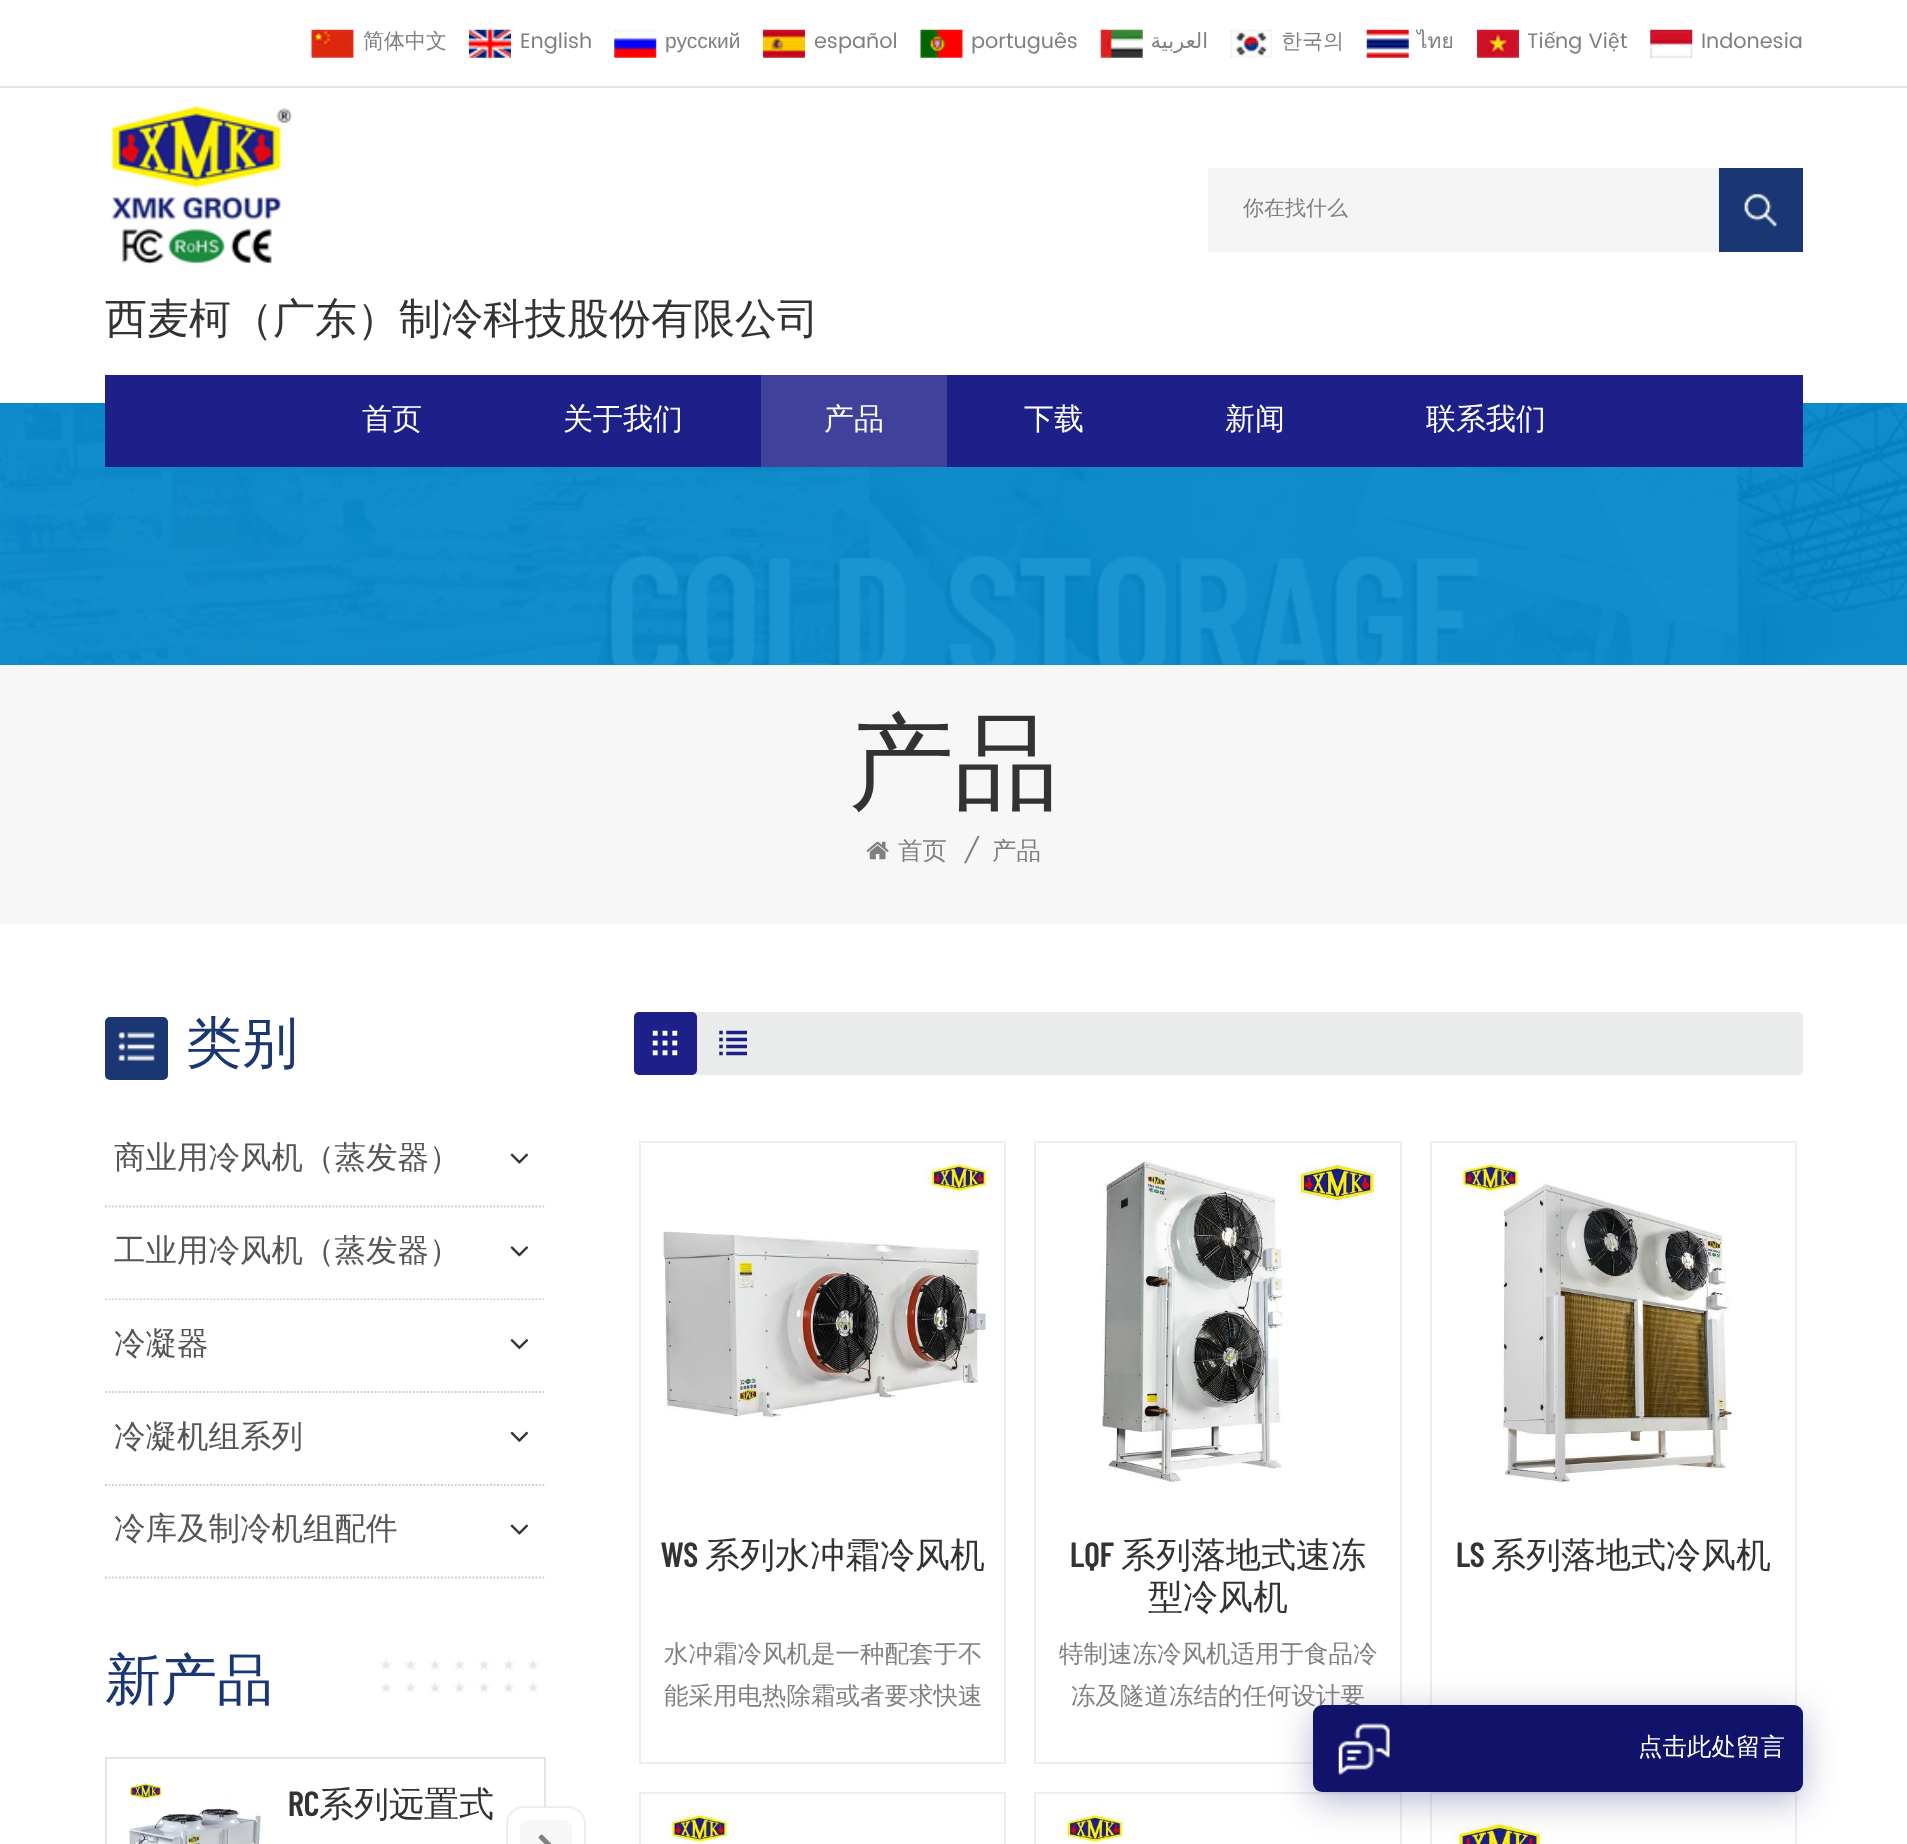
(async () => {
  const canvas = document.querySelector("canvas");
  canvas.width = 1907;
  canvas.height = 1844;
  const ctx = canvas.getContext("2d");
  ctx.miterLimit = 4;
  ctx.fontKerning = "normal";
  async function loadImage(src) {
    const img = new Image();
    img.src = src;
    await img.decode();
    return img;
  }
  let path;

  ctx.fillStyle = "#ffffff";
  ctx.fillRect(0, 0, 1907, 1844);
  ctx.fillStyle = "#e5e5e5";
  ctx.fillRect(0, 86, 1907, 2);
  ctx.drawImage(await loadImage("img/1.png"), 311, 29, 43, 29);
  ctx.drawImage(await loadImage("img/2.png"), 469, 29, 42, 29);
  ctx.drawImage(await loadImage("img/3.png"), 614, 29, 43, 29);
  ctx.drawImage(await loadImage("img/4.png"), 763, 29, 42, 29);
  ctx.drawImage(await loadImage("img/5.png"), 920, 29, 43, 29);
  ctx.drawImage(await loadImage("img/6.png"), 1100, 29, 43, 29);
  ctx.drawImage(await loadImage("img/7.png"), 1230, 29, 43, 29);
  ctx.drawImage(await loadImage("img/8.png"), 1366, 29, 43, 29);
  ctx.drawImage(await loadImage("img/9.png"), 1477, 29, 42, 29);
  ctx.drawImage(await loadImage("img/10.png"), 1650, 29, 43, 29);
  ctx.fillStyle = "#f5f5f5";
  ctx.fillRect(1208, 168, 511, 84);
  ctx.fillStyle = "#1a3773";
  ctx.fillRect(1719, 168, 84, 84);
  ctx.drawImage(await loadImage("img/11.png"), 1744, 193, 33, 34);
  ctx.drawImage(await loadImage("img/12.png"), 111, 106, 182, 159);
  ctx.fillStyle = "#008acc";
  ctx.fillRect(0, 403, 1907, 262);
  ctx.drawImage(await loadImage("img/13.png"), 0, 402, 1907, 263);
  for (const [x, y, w, h, color] of [
    [105, 375, 1698, 92, "#1d2088"],
    [761, 375, 186, 92, "#3f419a"],
    [0, 665, 1907, 259, "#f7f7f7"],
  ]) {
    ctx.fillStyle = color;
    ctx.fillRect(x, y, w, h);
  }
  ctx.drawImage(await loadImage("img/14.png"), 866, 841, 23, 19);
  ctx.fillStyle = "#1a3773";
  ctx.beginPath();
  ctx.roundRect(105, 1017, 63, 63, 5);
  ctx.fill();
  ctx.drawImage(await loadImage("img/15.png"), 118, 1032, 37, 29);
  path = new Path2D("M105 1206.5H546");
  ctx.strokeStyle = "#cccccc";
  ctx.lineWidth = 1.8;
  ctx.setLineDash([1.75, 1.75]);
  ctx.stroke(path);
  ctx.drawImage(await loadImage("img/16.png"), 510, 1153, 19, 11);
  path = new Path2D("M105 1299.5H546");
  ctx.stroke(path);
  ctx.drawImage(await loadImage("img/17.png"), 510, 1246, 19, 11);
  ctx.fillStyle = "#ffffff";
  ctx.fillRect(105, 1300, 440, 1);
  path = new Path2D("M105 1392H546");
  ctx.stroke(path);
  ctx.drawImage(await loadImage("img/18.png"), 510, 1339, 19, 11);
  path = new Path2D("M105 1485H546");
  ctx.stroke(path);
  ctx.drawImage(await loadImage("img/19.png"), 510, 1431, 19, 11);
  path = new Path2D("M105 1577.5H546");
  ctx.stroke(path);
  ctx.drawImage(await loadImage("img/16.png"), 510, 1524, 19, 11);
  ctx.drawImage(await loadImage("img/20.png"), 380, 1659, 159, 34);
  ctx.strokeStyle = "#e5e5e5";
  ctx.lineWidth = 2;
  ctx.setLineDash([]);
  ctx.strokeRect(106, 1758, 439, 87);
  ctx.drawImage(await loadImage("img/21.png"), 126, 1780, 136, 64);
  ctx.beginPath();
  ctx.roundRect(507, 1807, 78, 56, 17);
  ctx.fill();
  ctx.strokeStyle = "#eeeeee";
  ctx.stroke();
  ctx.fillStyle = "#f7f7f7";
  ctx.beginPath();
  ctx.roundRect(520, 1820, 52, 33, 9);
  ctx.fill();
  ctx.drawImage(await loadImage("img/22.png"), 538, 1834, 14, 10);
  ctx.fillStyle = "#eaebeb";
  ctx.beginPath();
  ctx.roundRect(634, 1012, 1169, 63, 5);
  ctx.fill();
  ctx.fillStyle = "#1d2088";
  ctx.beginPath();
  ctx.roundRect(634, 1012, 63, 63, 5);
  ctx.fill();
  ctx.drawImage(await loadImage("img/23.png"), 652, 1030, 26, 26);
  ctx.drawImage(await loadImage("img/24.png"), 719, 1030, 28, 26);
  ctx.strokeRect(640, 1142, 365, 621);
  ctx.drawImage(await loadImage("img/25.png"), 663, 1155, 327, 265);
  ctx.strokeRect(1035, 1142, 366, 621);
  ctx.drawImage(await loadImage("img/26.png"), 1102, 1155, 273, 330);
  ctx.strokeRect(1431, 1142, 365, 621);
  ctx.drawImage(await loadImage("img/27.png"), 1454, 1155, 283, 328);
  ctx.strokeRect(640, 1793, 365, 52);
  ctx.drawImage(await loadImage("img/28.png"), 663, 1806, 66, 38);
  ctx.strokeRect(1035, 1793, 366, 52);
  ctx.drawImage(await loadImage("img/29.png"), 1059, 1806, 66, 38);
  ctx.strokeRect(1431, 1793, 365, 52);
  ctx.drawImage(await loadImage("img/30.png"), 1454, 1816, 88, 28);
  ctx.fillStyle = "rgba(16, 19, 105, 0.3)";
  ctx.filter = "blur(17.5px)";
  ctx.beginPath();
  ctx.roundRect(1313, 1713, 490, 88, 9);
  ctx.fill();
  ctx.filter = "none";
  ctx.font = "500 21px WenQuanYi Zen Hei";
  ctx.fillStyle = "#808080";
  ctx.fillText("简体中文", 363, 48);
  ctx.font = "21px Poppins";
  ctx.fillText("English", 520, 48);
  ctx.font = "21px Liberation Sans";
  ctx.fillText("русский", 665, 48);
  ctx.font = "21px Poppins";
  ctx.fillText("español", 814, 48);
  ctx.fillText("português", 971, 48);
  ctx.direction = "rtl";
  ctx.font = "21px DejaVu Sans";
  ctx.fillText("العربية", 1208, 48);
  ctx.direction = "ltr";
  ctx.font = "500 21px WenQuanYi Zen Hei";
  ctx.fillText("한국의", 1281, 48);
  ctx.font = "21px Loma";
  ctx.fillText("ไทย", 1417, 48);
  ctx.font = "21px Poppins";
  ctx.fillText("Ti", 1527, 48);
  ctx.font = "21px Liberation Sans";
  ctx.fillText("ế", 1544, 48);
  ctx.font = "21px Poppins";
  ctx.fillText("ng Vi", 1555, 48);
  ctx.font = "21px Liberation Sans";
  ctx.fillText("ệ", 1608, 48);
  ctx.font = "21px Poppins";
  ctx.fillText("t", 1620, 48);
  ctx.fillText("Indonesia", 1701, 48);
  ctx.font = "500 21px WenQuanYi Zen Hei";
  ctx.fillText("你在找什么", 1243, 215);
  ctx.font = "500 42px WenQuanYi Zen Hei";
  ctx.fillStyle = "#333333";
  ctx.fillText("西麦柯（广东）制冷科技股份有限公司", 105, 333);
  ctx.font = "500 30px WenQuanYi Zen Hei";
  ctx.fillStyle = "#ffffff";
  for (const [text, x, y] of [
    ["首页", 362, 429],
    ["关于我们", 563, 429],
    ["产品", 824, 429],
    ["下载", 1024, 429],
    ["新闻", 1225, 429],
    ["联系我们", 1426, 429],
  ]) {
    ctx.fillText(text, x, y);
  }
  ctx.font = "500 105px WenQuanYi Zen Hei";
  ctx.fillStyle = "#333333";
  ctx.fillText("产品", 849, 799);
  ctx.font = "500 24.5px WenQuanYi Zen Hei";
  ctx.fillStyle = "#808080";
  ctx.fillText("首页", 898, 859);
  ctx.font = "italic 24.5px Poppins";
  ctx.fillText("/", 963, 859);
  ctx.font = "500 24.5px WenQuanYi Zen Hei";
  ctx.fillText("产品", 992, 859);
  ctx.font = "500 56px WenQuanYi Zen Hei";
  ctx.fillStyle = "#1a3773";
  ctx.fillText("类别", 186, 1062);
  ctx.font = "500 31.5px WenQuanYi Zen Hei";
  ctx.fillStyle = "#555555";
  for (const [text, x, y] of [
    ["商业用冷风机（蒸发器）", 114, 1168],
    ["工业用冷风机（蒸发器）", 114, 1261],
    ["冷凝器", 114, 1354],
    ["冷凝机组系列", 114, 1447],
    ["冷库及制冷机组配件", 114, 1539],
  ]) {
    ctx.fillText(text, x, y);
  }
  ctx.font = "500 56px WenQuanYi Zen Hei";
  ctx.fillStyle = "#1a3773";
  ctx.fillText("新产品", 105, 1699);
  ctx.font = "600 35px Barlow Condensed";
  ctx.fillStyle = "#333333";
  ctx.fillText("RC", 288, 1816);
  ctx.font = "500 35px WenQuanYi Zen Hei";
  ctx.fillText("系列远置式", 319, 1816);
  ctx.font = "600 35px Barlow Condensed";
  ctx.fillText("WS", 661, 1567);
  ctx.font = "500 35px WenQuanYi Zen Hei";
  ctx.fillText("系列水冲霜冷风机", 705, 1567);
  ctx.font = "500 24.5px WenQuanYi Zen Hei";
  ctx.fillStyle = "#808080";
  ctx.fillText("水冲霜冷风机是一种配套于不", 664, 1662);
  ctx.fillText("能采用电热除霜或者要求快速", 664, 1704);
  ctx.font = "600 35px Barlow Condensed";
  ctx.fillStyle = "#333333";
  ctx.fillText("LQF", 1070, 1567);
  ctx.font = "500 35px WenQuanYi Zen Hei";
  ctx.fillText("系列落地式速冻", 1121, 1567);
  ctx.fillText("型冷风机", 1148, 1609);
  ctx.font = "500 24.5px WenQuanYi Zen Hei";
  ctx.fillStyle = "#808080";
  ctx.fillText("特制速冻冷风机适用于食品冷", 1059, 1662);
  ctx.fillText("冻及隧道冻结的任何设计要", 1071, 1704);
  ctx.font = "600 35px Barlow Condensed";
  ctx.fillStyle = "#333333";
  ctx.fillText("LS", 1456, 1567);
  ctx.font = "500 35px WenQuanYi Zen Hei";
  ctx.fillText("系列落地式冷风机", 1491, 1567);
  ctx.fillStyle = "#101369";
  ctx.beginPath();
  ctx.roundRect(1313, 1705, 490, 87, 9);
  ctx.fill();
  ctx.drawImage(await loadImage("img/31.png"), 1338, 1723, 52, 52);
  ctx.font = "500 24.5px WenQuanYi Zen Hei";
  ctx.fillStyle = "#ffffff";
  ctx.fillText("点击此处留言", 1638, 1755);
})();
